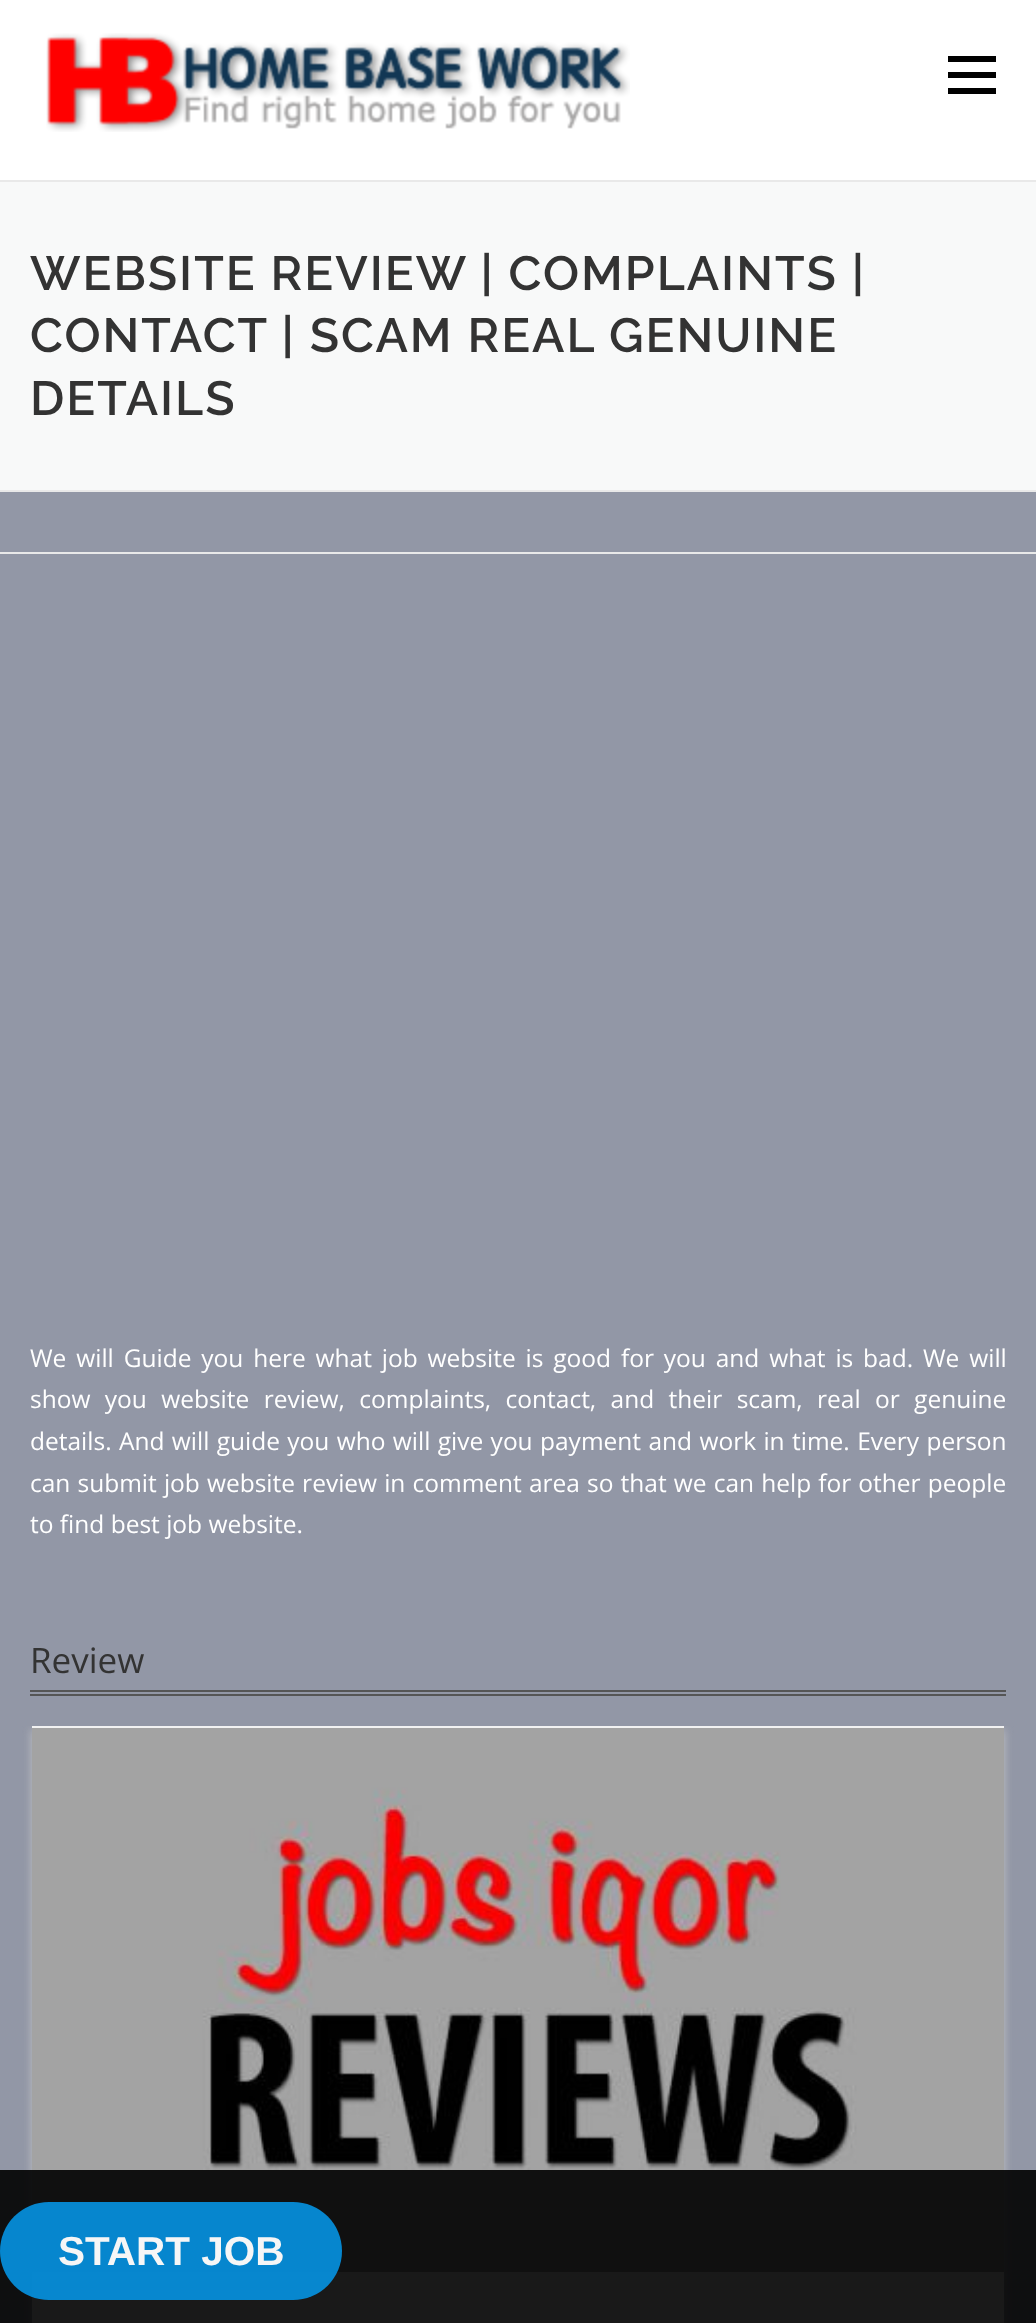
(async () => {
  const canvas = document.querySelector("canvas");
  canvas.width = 1036;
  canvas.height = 2323;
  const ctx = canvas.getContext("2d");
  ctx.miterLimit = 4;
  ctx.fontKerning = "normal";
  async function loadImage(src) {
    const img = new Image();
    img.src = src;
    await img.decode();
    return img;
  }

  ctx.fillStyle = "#9297a6";
  ctx.fillRect(0, 0, 1036, 2323);
  ctx.fillStyle = "#ffffff";
  ctx.fillRect(0, 0, 1036, 180);
  ctx.drawImage(await loadImage("img/1.png"), 46, 33, 584, 99);
  for (const [x, y, w, h, color] of [
    [948, 72, 48, 6, "#000000"],
    [948, 56, 48, 6, "#000000"],
    [948, 88, 48, 6, "#000000"],
    [0, 182, 1036, 308, "#f8f9f9"],
    [0, 180, 1036, 2, "#e9e9e9"],
    [0, 490, 1036, 2, "#e9e9e9"],
    [0, 552, 1036, 2, "#e9e9e9"],
    [30, 1690, 976, 2, "#555555"],
    [30, 1694, 976, 2, "#555555"],
  ]) {
    ctx.fillStyle = color;
    ctx.fillRect(x, y, w, h);
  }
  ctx.save();
  ctx.beginPath();
  ctx.rect(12, 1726, 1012, 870);
  ctx.clip();
  ctx.fillStyle = "rgba(202, 202, 202, 0.8)";
  ctx.filter = "blur(5px)";
  ctx.beginPath();
  ctx.rect(32, 1730, 972, 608);
  ctx.fill();
  ctx.filter = "none";
  ctx.restore();
  ctx.fillStyle = "#ffffff";
  ctx.fillRect(32, 2272, 972, 51);
  ctx.fillStyle = "#f2f2f2";
  ctx.fillRect(32, 1726, 972, 2);
  ctx.drawImage(await loadImage("img/2.png"), 32, 1728, 972, 544);
  ctx.fillStyle = "rgba(0, 0, 0, 0.9)";
  ctx.fillRect(0, 2170, 1036, 153);
  ctx.fillStyle = "rgba(6, 147, 227, 0.9)";
  ctx.beginPath();
  ctx.roundRect(0, 2202, 342, 98, 49);
  ctx.fill();
  ctx.letterSpacing = "2px";
  ctx.font = "600 48px Raleway";
  ctx.fillStyle = "#333333";
  for (const [text, x, y] of [
    ["WEBSITE REVIEW | COMPLAINTS |", 30, 290],
    ["CONTACT | SCAM REAL GENUINE", 30, 352],
    ["DETAILS", 30, 415],
  ]) {
    ctx.fillText(text, x, y);
  }
  ctx.letterSpacing = "0px";
  ctx.wordSpacing = "3.5px";
  ctx.font = "24.5px Open Sans";
  ctx.fillStyle = "#ffffff";
  ctx.fillText("We will Guide you here what job website is good for you and what is bad. We will", 30, 1367);
  ctx.wordSpacing = "8px";
  ctx.fillText("show you website review, complaints, contact, and their scam, real or genuine", 30, 1408);
  ctx.wordSpacing = "1px";
  ctx.fillText("details. And will guide you who will give you payment and work in time. Every person", 30, 1450);
  ctx.wordSpacing = "0.75px";
  ctx.fillText("can submit job website review in comment area so that we can help for other people", 30, 1492);
  ctx.wordSpacing = "0px";
  ctx.fillText("to find best job website.", 30, 1533);
  ctx.font = "35px Open Sans";
  ctx.fillStyle = "#333333";
  ctx.fillText("Review", 30, 1673);
  ctx.font = "bold 40.5px Liberation Sans";
  ctx.fillStyle = "#f6f6f6";
  ctx.fillText("START JOB", 58, 2265);
})();
